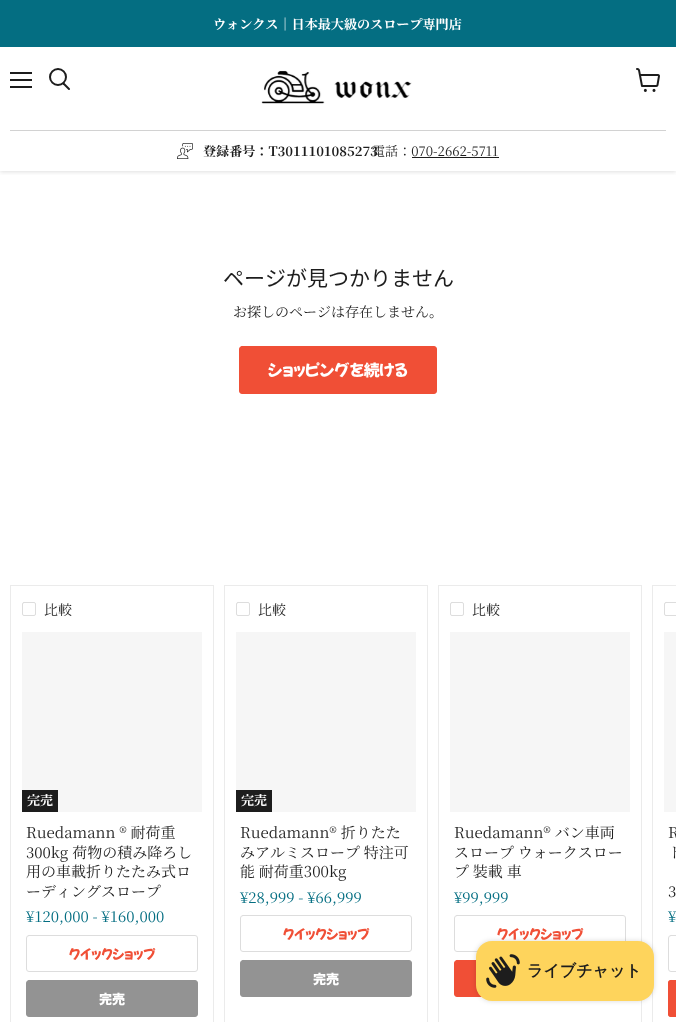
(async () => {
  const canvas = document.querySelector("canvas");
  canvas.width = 676;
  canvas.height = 1022;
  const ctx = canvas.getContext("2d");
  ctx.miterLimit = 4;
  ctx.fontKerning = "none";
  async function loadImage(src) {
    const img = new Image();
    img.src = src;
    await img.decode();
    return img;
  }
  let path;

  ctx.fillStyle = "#ffffff";
  ctx.fillRect(0, 0, 676, 1022);
  ctx.save();
  ctx.beginPath();
  ctx.rect(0, 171, 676, 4);
  ctx.clip();
  ctx.fillStyle = "rgba(128, 128, 128, 0.25)";
  ctx.filter = "blur(2px)";
  ctx.beginPath();
  ctx.rect(0, 48, 676, 124);
  ctx.fill();
  ctx.filter = "none";
  ctx.restore();
  for (const [x, y, w, h, color] of [
    [0, 0, 676, 47, "#046e82"],
    [10, 72, 22, 2, "#1d1d1d"],
    [10, 79, 22, 2, "#1d1d1d"],
    [10, 86, 22, 2, "#1d1d1d"],
  ]) {
    ctx.fillStyle = color;
    ctx.fillRect(x, y, w, h);
  }
  path = new Path2D("M69 89L63.5 83.5");
  ctx.strokeStyle = "#1d1d1d";
  ctx.lineWidth = 2;
  ctx.lineCap = "round";
  ctx.stroke(path);
  ctx.beginPath();
  ctx.arc(58, 77, 8, 0, Math.PI * 2);
  ctx.stroke();
  ctx.drawImage(await loadImage("img/1.png"), 636, 68, 24, 24);
  ctx.drawImage(await loadImage("img/2.png"), 261, 70, 151, 34);
  ctx.fillStyle = "#d2d2d2";
  ctx.fillRect(10, 130, 656, 1);
  ctx.drawImage(await loadImage("img/3.png"), 177, 143, 16, 16);
  ctx.fillStyle = "#1d1d1d";
  ctx.fillRect(412, 157, 87, 1);
  ctx.fillStyle = "#f04f36";
  ctx.beginPath();
  ctx.roundRect(239.5, 346.5, 197, 47, 2.5);
  ctx.fill();
  ctx.strokeStyle = "#f04f36";
  ctx.lineWidth = 1;
  ctx.stroke();
  ctx.strokeStyle = "#ebebeb";
  ctx.strokeRect(10.5, 585.5, 203, 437);
  ctx.beginPath();
  ctx.roundRect(22.5, 602.5, 13, 13, 1.5);
  ctx.strokeStyle = "#dddddd";
  ctx.stroke();
  ctx.fillStyle = "#f6f6f6";
  ctx.fillRect(22, 632, 180, 180);
  ctx.fillStyle = "#1d1d1d";
  ctx.fillRect(22, 790, 36, 22);
  ctx.beginPath();
  ctx.roundRect(26.5, 935.5, 171, 36, 2.5);
  ctx.stroke();
  ctx.fillStyle = "#939393";
  ctx.beginPath();
  ctx.roundRect(26.5, 980.5, 171, 36, 2.5);
  ctx.fill();
  ctx.strokeStyle = "#939393";
  ctx.stroke();
  ctx.strokeStyle = "#ebebeb";
  ctx.strokeRect(224.5, 585.5, 203, 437);
  ctx.beginPath();
  ctx.roundRect(236.5, 602.5, 13, 13, 1.5);
  ctx.strokeStyle = "#dddddd";
  ctx.stroke();
  ctx.fillStyle = "#f6f6f6";
  ctx.fillRect(236, 632, 180, 180);
  ctx.fillStyle = "#1d1d1d";
  ctx.fillRect(236, 790, 36, 22);
  ctx.beginPath();
  ctx.roundRect(240.5, 915.5, 171, 36, 2.5);
  ctx.stroke();
  ctx.fillStyle = "#939393";
  ctx.beginPath();
  ctx.roundRect(240.5, 960.5, 171, 36, 2.5);
  ctx.fill();
  ctx.strokeStyle = "#939393";
  ctx.stroke();
  ctx.strokeStyle = "#ebebeb";
  ctx.strokeRect(438.5, 585.5, 203, 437);
  ctx.beginPath();
  ctx.roundRect(450.5, 602.5, 13, 13, 1.5);
  ctx.strokeStyle = "#dddddd";
  ctx.stroke();
  ctx.fillStyle = "#f6f6f6";
  ctx.fillRect(450, 632, 180, 180);
  ctx.beginPath();
  ctx.roundRect(454.5, 915.5, 171, 36, 2.5);
  ctx.stroke();
  ctx.fillStyle = "#f04f36";
  ctx.beginPath();
  ctx.roundRect(454.5, 960.5, 171, 36, 2.5);
  ctx.fill();
  ctx.strokeStyle = "#f04f36";
  ctx.stroke();
  ctx.strokeStyle = "#ebebeb";
  ctx.strokeRect(652.5, 585.5, 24, 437);
  ctx.beginPath();
  ctx.roundRect(664.5, 602.5, 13, 13, 1.5);
  ctx.strokeStyle = "#dddddd";
  ctx.stroke();
  ctx.fillStyle = "#f6f6f6";
  ctx.fillRect(664, 632, 12, 180);
  ctx.beginPath();
  ctx.roundRect(668.5, 935.5, 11, 36, 2.5);
  ctx.stroke();
  ctx.fillStyle = "#f04f36";
  ctx.beginPath();
  ctx.roundRect(668, 980, 8, 37, [3, 0, 0, 3]);
  ctx.fill();
  ctx.beginPath();
  ctx.roundRect(668.5, 980.5, 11, 36, 2.5);
  ctx.strokeStyle = "#f04f36";
  ctx.stroke();
  ctx.fillStyle = "rgba(0, 0, 0, 0.15)";
  ctx.filter = "blur(2.5px)";
  ctx.beginPath();
  ctx.roundRect(476, 941, 178, 60, 16);
  ctx.fill();
  ctx.filter = "none";
  ctx.fillStyle = "#fed45c";
  ctx.beginPath();
  ctx.roundRect(476, 941, 178, 60, 16);
  ctx.fill();
  ctx.drawImage(await loadImage("img/4.png"), 486, 954, 34, 34);
  ctx.font = "bold 13.1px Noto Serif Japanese";
  ctx.fillStyle = "#ffffff";
  ctx.fillText("ウォンクス｜日本最大級のスロープ専門店", 213, 29);
  ctx.fillStyle = "#1d1d1d";
  ctx.fillText("登録番号：T3011101085273", 203, 156);
  ctx.font = "13.1px Noto Serif Japanese";
  ctx.fillText("電話：070-2662-5711", 372, 156);
  ctx.font = "21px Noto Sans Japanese";
  ctx.fillText("ページが見つかりません", 223, 286);
  ctx.font = "14px Noto Serif Japanese";
  ctx.fillText("お探しのページは存在しません。", 233, 317);
  ctx.font = "15.9px Mochiy Pop P One";
  ctx.fillStyle = "#ffffff";
  ctx.fillText("ショッピングを続ける", 268, 376);
  ctx.font = "14px Noto Serif Japanese";
  ctx.fillStyle = "#1d1d1d";
  ctx.fillText("比較", 44, 615);
  ctx.font = "bold 13px Noto Serif Japanese";
  ctx.fillStyle = "#ffffff";
  ctx.fillText("完売", 27, 805);
  ctx.font = "15px Noto Serif Japanese";
  ctx.fillStyle = "#1d1d1d";
  for (const [text, x, y] of [
    ["Ruedamann ® 耐荷重", 26, 838],
    ["300kg 荷物の積み降ろし", 26, 858],
    ["用の車載折りたたみ式ロ", 26, 877],
    ["ーディングスロープ", 26, 897],
  ]) {
    ctx.fillText(text, x, y);
  }
  ctx.fillStyle = "#046e82";
  ctx.fillText("¥120,000 - ¥160,000", 26, 922);
  ctx.font = "13.1px Mochiy Pop P One";
  ctx.fillStyle = "#f04f36";
  ctx.fillText("クイックショップ", 69, 959);
  ctx.fillStyle = "#ffffff";
  ctx.fillText("完売", 99, 1004);
  ctx.font = "14px Noto Serif Japanese";
  ctx.fillStyle = "#1d1d1d";
  ctx.fillText("比較", 258, 615);
  ctx.font = "bold 13px Noto Serif Japanese";
  ctx.fillStyle = "#ffffff";
  ctx.fillText("完売", 241, 805);
  ctx.font = "15px Noto Serif Japanese";
  ctx.fillStyle = "#1d1d1d";
  for (const [text, x, y] of [
    ["Ruedamann® 折りたた", 240, 838],
    ["みアルミスロープ 特注可", 240, 858],
    ["能 耐荷重300kg", 240, 877],
  ]) {
    ctx.fillText(text, x, y);
  }
  ctx.fillStyle = "#046e82";
  ctx.fillText("¥28,999 - ¥66,999", 240, 903);
  ctx.font = "13.1px Mochiy Pop P One";
  ctx.fillStyle = "#f04f36";
  ctx.fillText("クイックショップ", 283, 939);
  ctx.fillStyle = "#ffffff";
  ctx.fillText("完売", 313, 984);
  ctx.font = "14px Noto Serif Japanese";
  ctx.fillStyle = "#1d1d1d";
  ctx.fillText("比較", 472, 615);
  ctx.font = "15px Noto Serif Japanese";
  for (const [text, x, y] of [
    ["Ruedamann® バン車両", 454, 838],
    ["スロープ ウォークスロー", 454, 858],
    ["プ 裝載 車", 454, 877],
  ]) {
    ctx.fillText(text, x, y);
  }
  ctx.fillStyle = "#046e82";
  ctx.fillText("¥99,999", 454, 903);
  ctx.font = "13.1px Mochiy Pop P One";
  ctx.fillStyle = "#f04f36";
  ctx.fillText("クイックショップ", 497, 939);
  ctx.font = "15px Noto Serif Japanese";
  ctx.fillStyle = "#1d1d1d";
  for (const [text, x, y] of [
    ["R", 668, 838],
    ["ト", 668, 858],
    ["3", 668, 897],
  ]) {
    ctx.fillText(text, x, y);
  }
  ctx.fillStyle = "#046e82";
  ctx.fillText("¥", 668, 922);
  ctx.font = "bold 16px WenQuanYi Zen Hei";
  ctx.fillStyle = "#1d1d1d";
  ctx.fillText("ライブチャット", 527, 976);
})();
